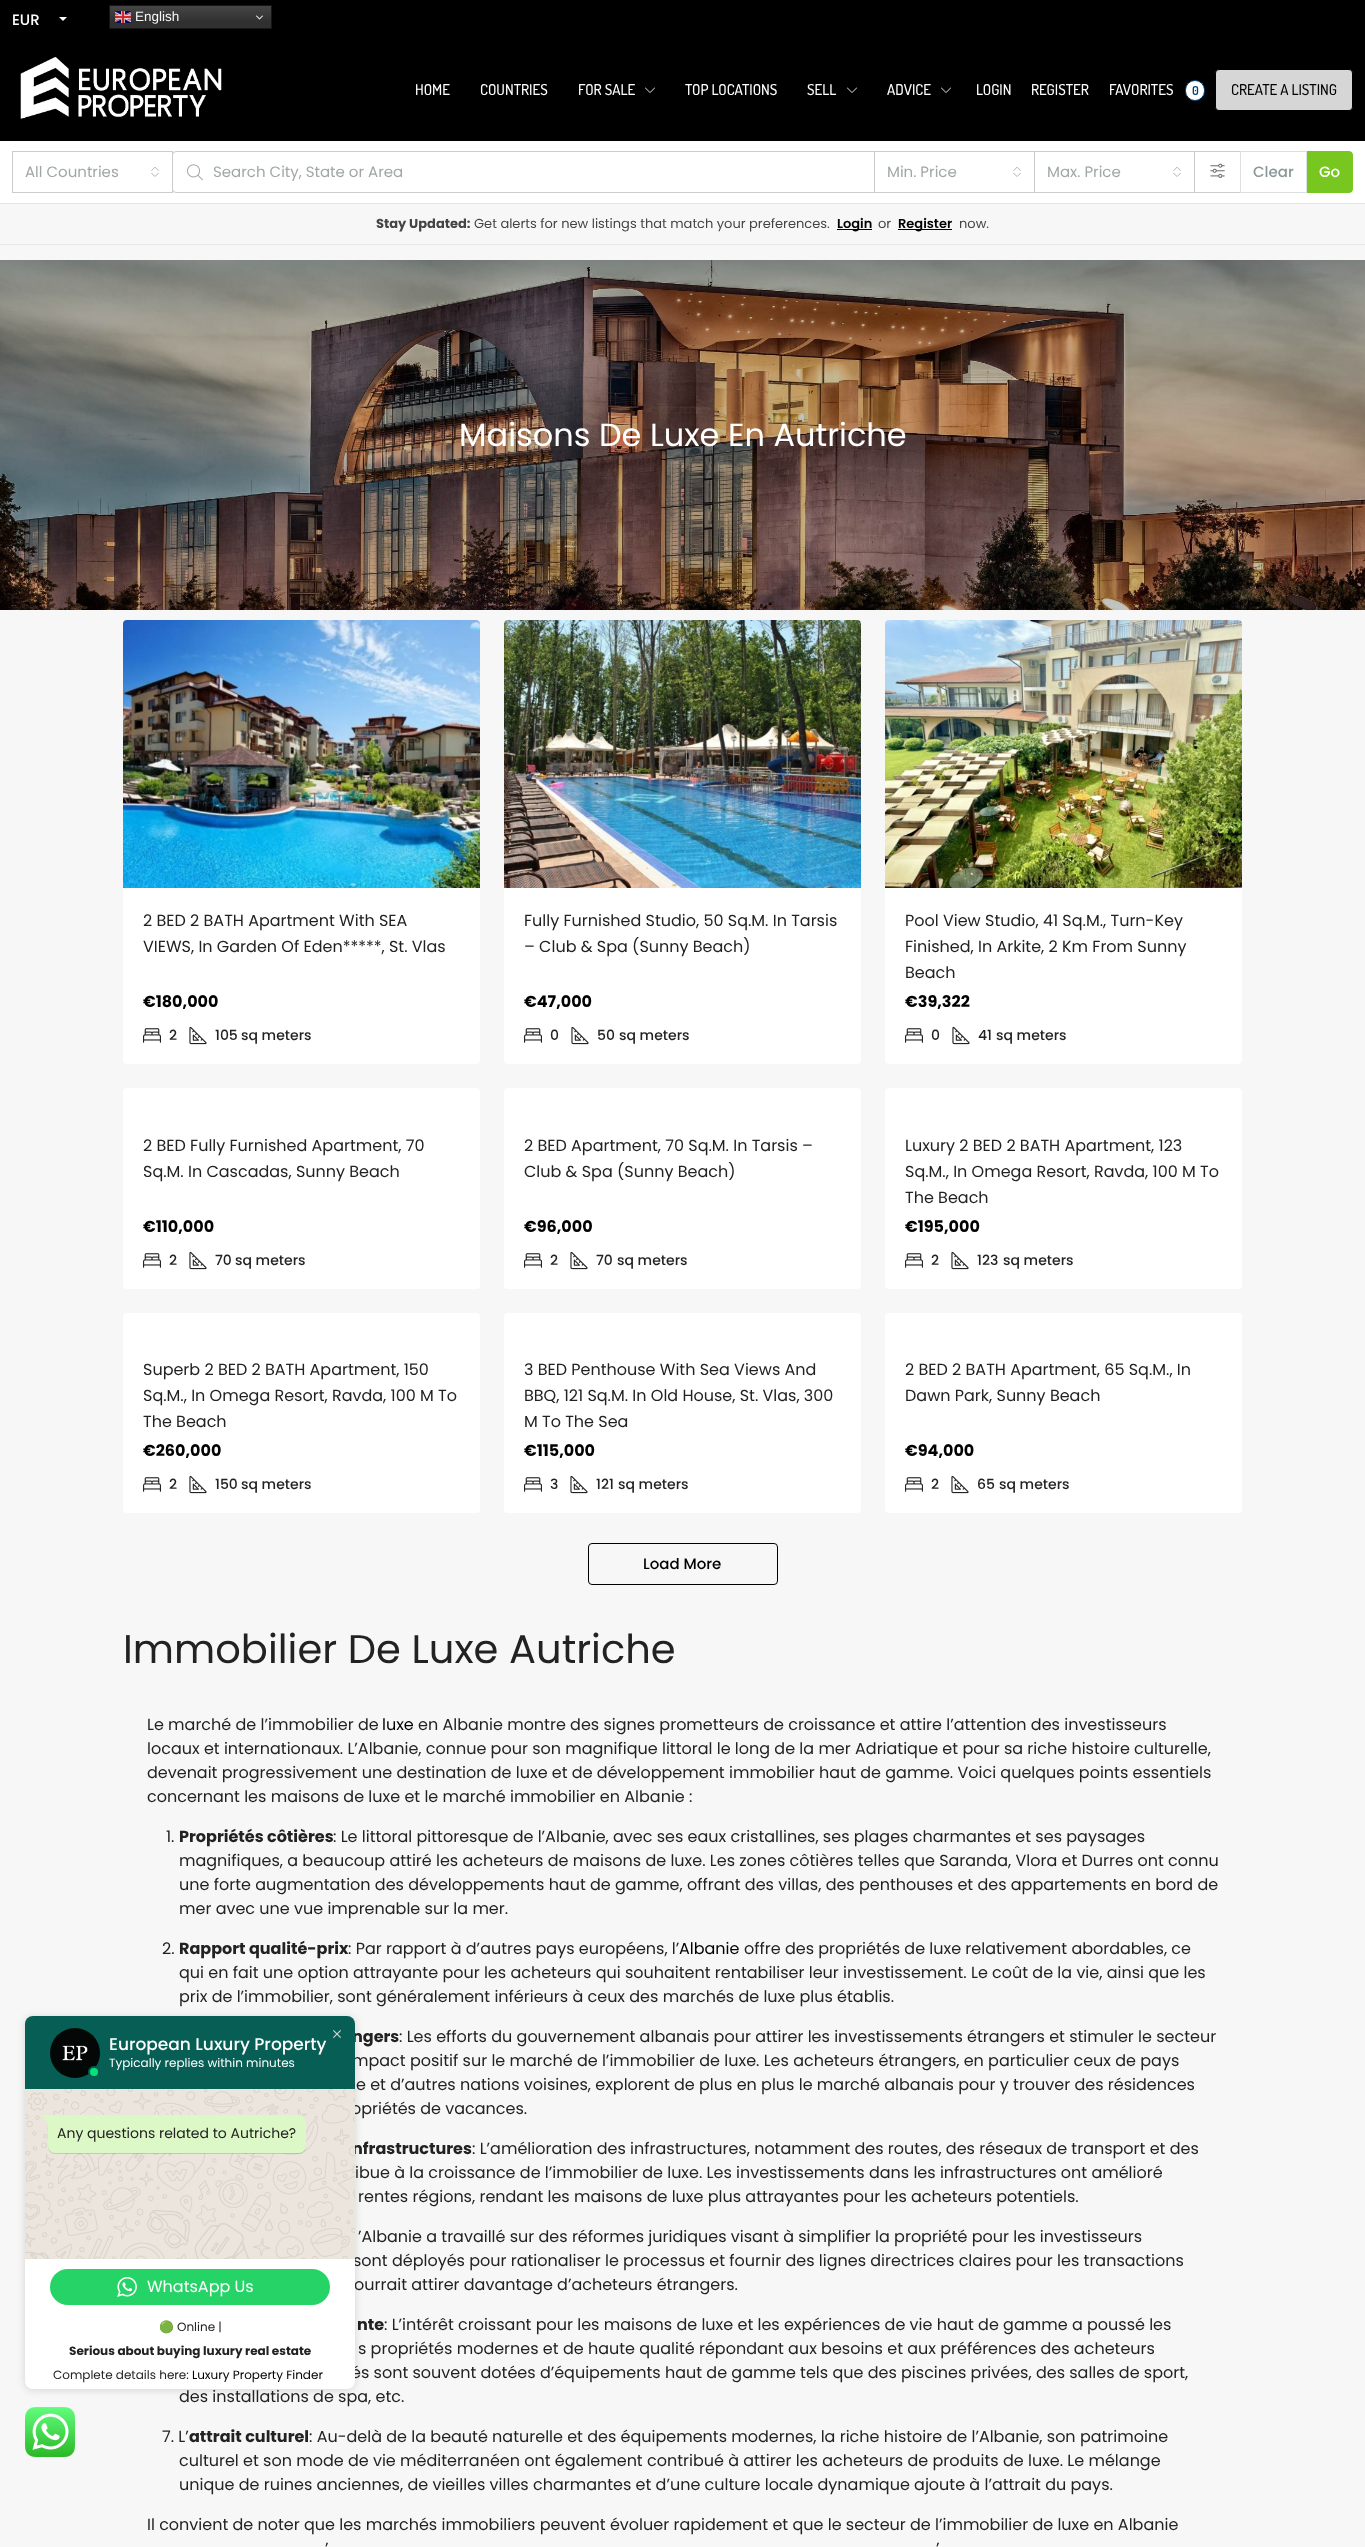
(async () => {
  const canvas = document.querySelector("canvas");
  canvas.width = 1365;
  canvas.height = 2547;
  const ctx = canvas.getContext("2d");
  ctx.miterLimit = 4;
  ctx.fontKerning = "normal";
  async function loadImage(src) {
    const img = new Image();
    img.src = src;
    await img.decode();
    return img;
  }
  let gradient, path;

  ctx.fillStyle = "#f7f7f7";
  ctx.fillRect(0, 0, 1365, 2547);
  ctx.fillStyle = "#000000";
  ctx.fillRect(0, 0, 1365, 141);
  gradient = ctx.createLinearGradient(191, 5, 191, 29);
  gradient.addColorStop(0, "#474747");
  gradient.addColorStop(0.7, "#303030");
  ctx.fillStyle = gradient;
  ctx.fillRect(110, 6, 161, 22);
  ctx.strokeStyle = "#161616";
  ctx.strokeRect(109.5, 5.5, 162, 23);
  ctx.drawImage(await loadImage("img/1.png"), 115, 11, 16, 12);
  ctx.drawImage(await loadImage("img/2.png"), 256, 15, 7, 5);
  ctx.fillStyle = "#ffffff";
  path = new Path2D("M59 17H67L63 21Z");
  ctx.fill(path);
  ctx.drawImage(await loadImage("img/3.png"), 20, 57, 202, 62);
  ctx.drawImage(await loadImage("img/4.png"), 645, 87, 10, 6);
  ctx.drawImage(await loadImage("img/4.png"), 847, 87, 10, 6);
  ctx.drawImage(await loadImage("img/4.png"), 941, 87, 10, 6);
  ctx.beginPath();
  ctx.roundRect(1185.5, 80.5, 19, 20, 9.5);
  ctx.fill();
  ctx.strokeStyle = "#004274";
  ctx.stroke();
  ctx.fillStyle = "#d6d6d6";
  ctx.beginPath();
  ctx.roundRect(1215.5, 69.5, 137, 41, 3.5);
  ctx.fill();
  ctx.strokeStyle = "#000000";
  ctx.stroke();
  ctx.fillStyle = "#ffffff";
  ctx.fillRect(0, 141, 1365, 62);
  ctx.strokeStyle = "#cccccc";
  ctx.strokeRect(12.5, 151.5, 160, 41);
  ctx.drawImage(await loadImage("img/5.png"), 151, 167, 8, 10);
  ctx.beginPath();
  ctx.roundRect(172.5, 151.5, 702, 41, [3.5, 0, 0, 3.5]);
  ctx.stroke();
  ctx.drawImage(await loadImage("img/6.png"), 187, 164, 16, 17);
  ctx.strokeRect(874.5, 151.5, 160, 41);
  ctx.drawImage(await loadImage("img/5.png"), 1013, 167, 8, 10);
  ctx.strokeRect(1034.5, 151.5, 160, 41);
  ctx.drawImage(await loadImage("img/5.png"), 1173, 167, 8, 10);
  ctx.strokeRect(1194.5, 151.5, 46, 41);
  ctx.drawImage(await loadImage("img/7.png"), 1210, 163, 15, 15);
  ctx.fillStyle = "#77c720";
  ctx.beginPath();
  ctx.roundRect(1306.5, 151.5, 46, 41, [0, 3.5, 3.5, 0]);
  ctx.fill();
  ctx.strokeStyle = "#77c720";
  ctx.stroke();
  ctx.strokeStyle = "#dce0e0";
  ctx.strokeRect(1240.5, 151.5, 66, 41);
  for (const [x, y, w, h, color] of [
    [0, 203, 1365, 1, "#e6e6e6"],
    [0, 244, 1365, 1, "#e6e6e6"],
    [837, 229, 35, 1, "#000000"],
    [898, 229, 54, 1, "#000000"],
  ]) {
    ctx.fillStyle = color;
    ctx.fillRect(x, y, w, h);
  }
  ctx.drawImage(await loadImage("img/8.png"), 0, 260, 1365, 350);
  ctx.fillStyle = "#ffffff";
  ctx.beginPath();
  ctx.roundRect(123, 620, 357, 444, 4);
  ctx.fill();
  ctx.drawImage(await loadImage("img/9.png"), 123, 620, 357, 268);
  ctx.drawImage(await loadImage("img/10.png"), 143, 1028, 18, 15);
  ctx.drawImage(await loadImage("img/11.png"), 189, 1026, 18, 19);
  ctx.beginPath();
  ctx.roundRect(504, 620, 357, 444, 4);
  ctx.fill();
  ctx.drawImage(await loadImage("img/12.png"), 504, 620, 357, 268);
  ctx.drawImage(await loadImage("img/10.png"), 524, 1028, 18, 15);
  ctx.drawImage(await loadImage("img/11.png"), 571, 1026, 18, 19);
  ctx.beginPath();
  ctx.roundRect(885, 620, 357, 444, 4);
  ctx.fill();
  ctx.drawImage(await loadImage("img/13.png"), 885, 620, 357, 268);
  ctx.drawImage(await loadImage("img/10.png"), 905, 1028, 18, 15);
  ctx.drawImage(await loadImage("img/11.png"), 952, 1026, 18, 19);
  ctx.beginPath();
  ctx.roundRect(123, 1088, 357, 201, 4);
  ctx.fill();
  ctx.drawImage(await loadImage("img/10.png"), 143, 1253, 18, 15);
  ctx.drawImage(await loadImage("img/11.png"), 189, 1251, 18, 19);
  ctx.beginPath();
  ctx.roundRect(504, 1088, 357, 201, 4);
  ctx.fill();
  ctx.drawImage(await loadImage("img/10.png"), 524, 1253, 18, 15);
  ctx.drawImage(await loadImage("img/11.png"), 570, 1251, 18, 19);
  ctx.beginPath();
  ctx.roundRect(885, 1088, 357, 201, 4);
  ctx.fill();
  ctx.drawImage(await loadImage("img/10.png"), 905, 1253, 18, 15);
  ctx.drawImage(await loadImage("img/11.png"), 951, 1251, 18, 19);
  ctx.beginPath();
  ctx.roundRect(123, 1313, 357, 200, 4);
  ctx.fill();
  ctx.drawImage(await loadImage("img/10.png"), 143, 1477, 18, 15);
  ctx.drawImage(await loadImage("img/11.png"), 189, 1475, 18, 19);
  ctx.beginPath();
  ctx.roundRect(504, 1313, 357, 200, 4);
  ctx.fill();
  ctx.drawImage(await loadImage("img/10.png"), 524, 1477, 18, 15);
  ctx.drawImage(await loadImage("img/11.png"), 570, 1475, 18, 19);
  ctx.beginPath();
  ctx.roundRect(885, 1313, 357, 200, 4);
  ctx.fill();
  ctx.drawImage(await loadImage("img/10.png"), 905, 1477, 18, 15);
  ctx.drawImage(await loadImage("img/11.png"), 951, 1475, 18, 19);
  ctx.beginPath();
  ctx.roundRect(588.5, 1543.5, 189, 41, 3.5);
  ctx.strokeStyle = "#000000";
  ctx.stroke();
  ctx.fillStyle = "rgba(0, 0, 0, 0.14)";
  ctx.filter = "blur(4.5px)";
  ctx.beginPath();
  ctx.roundRect(25, 2017, 330, 373, 8);
  ctx.fill();
  ctx.filter = "none";
  ctx.drawImage(await loadImage("img/18.png"), 25, 2407, 50, 50);
  ctx.font = "13.5px Liberation Sans";
  ctx.fillStyle = "#f7f7f7";
  ctx.fillText("English", 135, 21);
  ctx.font = "500 15px Poppins";
  ctx.fillStyle = "#ffffff";
  ctx.fillText("EUR", 12, 25);
  ctx.font = "500 15px Dosis";
  for (const [text, x, y] of [
    ["HOME", 415, 95],
    ["COUNTRIES", 480, 95],
    ["FOR SALE", 578, 95],
    ["TOP LOCATIONS", 685, 95],
    ["SELL", 807, 95],
    ["ADVICE", 887, 95],
    ["LOGIN", 976, 95],
    ["REGISTER", 1031, 95],
    ["FAVORITES", 1109, 95],
  ]) {
    ctx.fillText(text, x, y);
  }
  ctx.font = "bold 12px Dosis";
  ctx.fillStyle = "#004274";
  ctx.fillText("0", 1192, 95);
  ctx.font = "500 15px Dosis";
  ctx.fillStyle = "#000000";
  ctx.fillText("CREATE A LISTING", 1231, 95);
  ctx.font = "15px Poppins";
  ctx.fillStyle = "#a1a7a8";
  for (const [text, x, y] of [
    ["All Countries", 25, 177],
    ["Search City, State or Area", 213, 177],
    ["Min. Price", 887, 177],
    ["Max. Price", 1047, 177],
  ]) {
    ctx.fillText(text, x, y);
  }
  ctx.font = "500 15px Poppins";
  ctx.fillStyle = "#8b9898";
  ctx.fillText("Clear", 1253, 177);
  ctx.fillStyle = "#ffffff";
  ctx.fillText("Go", 1319, 177);
  ctx.font = "bold 13px Poppins";
  ctx.fillStyle = "#444444";
  ctx.fillText("Stay Updated:", 376, 228);
  ctx.font = "13px Poppins";
  ctx.fillText("Get alerts for new listings that match your preferences.", 474, 228);
  ctx.font = "600 13px Poppins";
  ctx.fillStyle = "#000000";
  ctx.fillText("Login", 837, 228);
  ctx.font = "13px Poppins";
  ctx.fillStyle = "#444444";
  ctx.fillText("or", 878, 228);
  ctx.font = "600 13px Poppins";
  ctx.fillStyle = "#000000";
  ctx.fillText("Register", 898, 228);
  ctx.font = "13px Poppins";
  ctx.fillStyle = "#444444";
  ctx.fillText("now.", 959, 228);
  ctx.font = "32px Poppins";
  ctx.fillStyle = "#ffffff";
  ctx.fillText("Maisons De Luxe En Autriche", 459, 446);
  ctx.font = "16px Poppins";
  ctx.fillStyle = "#222222";
  ctx.fillText("2 BED 2 BATH Apartment With SEA", 143, 926);
  ctx.fillText("VIEWS, In Garden Of Eden*****, St. Vlas", 143, 952);
  ctx.font = "bold 16px Poppins";
  ctx.fillStyle = "#000000";
  ctx.fillText("€180,000", 143, 1007);
  ctx.font = "500 14px Poppins";
  ctx.fillStyle = "#222222";
  for (const [text, x, y] of [
    ["2", 169, 1040],
    ["105", 215, 1040],
    ["sq meters", 241, 1040],
  ]) {
    ctx.fillText(text, x, y);
  }
  ctx.font = "16px Poppins";
  ctx.fillText("Fully Furnished Studio, 50 Sq.M. In Tarsis", 524, 926);
  ctx.fillText("– Club & Spa (Sunny Beach)", 524, 952);
  ctx.font = "bold 16px Poppins";
  ctx.fillStyle = "#000000";
  ctx.fillText("€47,000", 524, 1007);
  ctx.font = "500 14px Poppins";
  ctx.fillStyle = "#222222";
  for (const [text, x, y] of [
    ["0", 550, 1040],
    ["50", 597, 1040],
    ["sq meters", 619, 1040],
  ]) {
    ctx.fillText(text, x, y);
  }
  ctx.font = "16px Poppins";
  for (const [text, x, y] of [
    ["Pool View Studio, 41 Sq.M., Turn-Key", 905, 926],
    ["Finished, In Arkite, 2 Km From Sunny", 905, 952],
    ["Beach", 905, 978],
  ]) {
    ctx.fillText(text, x, y);
  }
  ctx.font = "bold 16px Poppins";
  ctx.fillStyle = "#000000";
  ctx.fillText("€39,322", 905, 1007);
  ctx.font = "500 14px Poppins";
  ctx.fillStyle = "#222222";
  for (const [text, x, y] of [
    ["0", 931, 1040],
    ["41", 978, 1040],
    ["sq meters", 996, 1040],
  ]) {
    ctx.fillText(text, x, y);
  }
  ctx.font = "16px Poppins";
  ctx.fillText("2 BED Fully Furnished Apartment, 70", 143, 1151);
  ctx.fillText("Sq.M. In Cascadas, Sunny Beach", 143, 1177);
  ctx.font = "bold 16px Poppins";
  ctx.fillStyle = "#000000";
  ctx.fillText("€110,000", 143, 1232);
  ctx.font = "500 14px Poppins";
  ctx.fillStyle = "#222222";
  for (const [text, x, y] of [
    ["2", 169, 1265],
    ["70", 215, 1265],
    ["sq meters", 235, 1265],
  ]) {
    ctx.fillText(text, x, y);
  }
  ctx.font = "16px Poppins";
  ctx.fillText("2 BED Apartment, 70 Sq.M. In Tarsis –", 524, 1151);
  ctx.fillText("Club & Spa (Sunny Beach)", 524, 1177);
  ctx.font = "bold 16px Poppins";
  ctx.fillStyle = "#000000";
  ctx.fillText("€96,000", 524, 1232);
  ctx.font = "500 14px Poppins";
  ctx.fillStyle = "#222222";
  for (const [text, x, y] of [
    ["2", 550, 1265],
    ["70", 596, 1265],
    ["sq meters", 617, 1265],
  ]) {
    ctx.fillText(text, x, y);
  }
  ctx.font = "16px Poppins";
  for (const [text, x, y] of [
    ["Luxury 2 BED 2 BATH Apartment, 123", 905, 1151],
    ["Sq.M., In Omega Resort, Ravda, 100 M To", 905, 1177],
    ["The Beach", 905, 1203],
  ]) {
    ctx.fillText(text, x, y);
  }
  ctx.font = "bold 16px Poppins";
  ctx.fillStyle = "#000000";
  ctx.fillText("€195,000", 905, 1232);
  ctx.font = "500 14px Poppins";
  ctx.fillStyle = "#222222";
  for (const [text, x, y] of [
    ["2", 931, 1265],
    ["123", 977, 1265],
    ["sq meters", 1003, 1265],
  ]) {
    ctx.fillText(text, x, y);
  }
  ctx.font = "16px Poppins";
  for (const [text, x, y] of [
    ["Superb 2 BED 2 BATH Apartment, 150", 143, 1375],
    ["Sq.M., In Omega Resort, Ravda, 100 M To", 143, 1401],
    ["The Beach", 143, 1427],
  ]) {
    ctx.fillText(text, x, y);
  }
  ctx.font = "bold 16px Poppins";
  ctx.fillStyle = "#000000";
  ctx.fillText("€260,000", 143, 1456);
  ctx.font = "500 14px Poppins";
  ctx.fillStyle = "#222222";
  for (const [text, x, y] of [
    ["2", 169, 1489],
    ["150", 215, 1489],
    ["sq meters", 241, 1489],
  ]) {
    ctx.fillText(text, x, y);
  }
  ctx.font = "16px Poppins";
  for (const [text, x, y] of [
    ["3 BED Penthouse With Sea Views And", 524, 1375],
    ["BBQ, 121 Sq.M. In Old House, St. Vlas, 300", 524, 1401],
    ["M To The Sea", 524, 1427],
  ]) {
    ctx.fillText(text, x, y);
  }
  ctx.font = "bold 16px Poppins";
  ctx.fillStyle = "#000000";
  ctx.fillText("€115,000", 524, 1456);
  ctx.font = "500 14px Poppins";
  ctx.fillStyle = "#222222";
  for (const [text, x, y] of [
    ["3", 550, 1489],
    ["121", 596, 1489],
    ["sq meters", 618, 1489],
  ]) {
    ctx.fillText(text, x, y);
  }
  ctx.font = "16px Poppins";
  ctx.fillText("2 BED 2 BATH Apartment, 65 Sq.M., In", 905, 1375);
  ctx.fillText("Dawn Park, Sunny Beach", 905, 1401);
  ctx.font = "bold 16px Poppins";
  ctx.fillStyle = "#000000";
  ctx.fillText("€94,000", 905, 1456);
  ctx.font = "500 14px Poppins";
  ctx.fillStyle = "#222222";
  for (const [text, x, y] of [
    ["2", 931, 1489],
    ["65", 977, 1489],
    ["sq meters", 999, 1489],
  ]) {
    ctx.fillText(text, x, y);
  }
  ctx.font = "500 15px Poppins";
  ctx.fillStyle = "#000000";
  ctx.fillText("Load More", 643, 1569);
  ctx.font = "40px Poppins";
  ctx.fillStyle = "#222222";
  ctx.fillText("Immobilier De Luxe Autriche", 123, 1663);
  ctx.font = "16px Poppins";
  ctx.fillText("Le marché de l’immobilier de", 147, 1730);
  ctx.fillStyle = "#000000";
  ctx.fillText("luxe", 382, 1730);
  ctx.fillStyle = "#222222";
  for (const [text, x, y] of [
    ["en Albanie montre des signes prometteurs de croissance et attire l’attention des investisseurs", 418, 1730],
    ["locaux et internationaux. L’Albanie, connue pour son magnifique littoral le long de la mer Adriatique et pour sa riche histoire culturelle,", 147, 1754],
    ["devenait progressivement une destination de luxe et de développement immobilier haut de gamme. Voici quelques points essentiels", 147, 1778],
    ["concernant les maisons de luxe et le marché immobilier en Albanie :", 147, 1802],
    ["1.", 166, 1842],
  ]) {
    ctx.fillText(text, x, y);
  }
  ctx.font = "bold 16px Poppins";
  ctx.fillText("Propriétés côtières", 179, 1842);
  ctx.font = "16px Poppins";
  for (const [text, x, y] of [
    [": Le littoral pittoresque de l’Albanie, avec ses eaux cristallines, ses plages charmantes et ses paysages", 333, 1842],
    ["magnifiques, a beaucoup attiré les acheteurs de maisons de luxe. Les zones côtières telles que Saranda, Vlora et Durres ont connu", 179, 1866],
    ["une forte augmentation des développements haut de gamme, offrant des villas, des penthouses et des appartements en bord de", 179, 1890],
    ["mer avec une vue imprenable sur la mer.", 179, 1914],
    ["2.", 162, 1954],
  ]) {
    ctx.fillText(text, x, y);
  }
  ctx.font = "bold 16px Poppins";
  ctx.fillText("Rapport qualité-prix", 179, 1954);
  ctx.font = "16px Poppins";
  ctx.fillText(": Par rapport à d’autres pays européens, l’", 348, 1954);
  ctx.fillStyle = "#000000";
  ctx.fillText("Albanie", 679, 1954);
  ctx.fillStyle = "#222222";
  for (const [text, x, y] of [
    ["offre des propriétés de luxe relativement abordables, ce", 744, 1954],
    ["qui en fait une option attrayante pour les acheteurs qui souhaitent rentabiliser leur investissement. Le coût de la vie, ainsi que les", 179, 1978],
    ["prix de l’immobilier, sont généralement inférieurs à ceux des marchés de luxe plus établis.", 179, 2002],
  ]) {
    ctx.fillText(text, x, y);
  }
  ctx.font = "bold 16px Poppins";
  ctx.fillText("ngers", 352, 2042);
  ctx.font = "16px Poppins";
  for (const [text, x, y] of [
    [": Les efforts du gouvernement albanais pour attirer les investissements étrangers et stimuler le secteur", 399, 2042],
    ["mpact positif sur le marché de l’immobilier de luxe. Les acheteurs étrangers, en particulier ceux de pays", 352, 2066],
    ["e et d’autres nations voisines, explorent de plus en plus le marché albanais pour y trouver des résidences", 356, 2090],
    ["opriétés de vacances.", 351, 2114],
  ]) {
    ctx.fillText(text, x, y);
  }
  ctx.font = "bold 16px Poppins";
  ctx.fillText("nfrastructures", 352, 2154);
  ctx.font = "16px Poppins";
  for (const [text, x, y] of [
    [": L’amélioration des infrastructures, notamment des routes, des réseaux de transport et des", 472, 2154],
    ["ibue à la croissance de l’immobilier de luxe. Les investissements dans les infrastructures ont amélioré", 355, 2178],
    ["rentes régions, rendant les maisons de luxe plus attrayantes pour les acheteurs potentiels.", 358, 2202],
    ["’Albanie a travaillé sur des réformes juridiques visant à simplifier la propriété pour les investisseurs", 358, 2242],
    ["sont déployés pour rationaliser le processus et fournir des lignes directrices claires pour les transactions", 353, 2266],
    ["ourrait attirer davantage d’acheteurs étrangers.", 354, 2290],
  ]) {
    ctx.fillText(text, x, y);
  }
  ctx.font = "bold 16px Poppins";
  ctx.fillText("nte", 357, 2330);
  ctx.font = "16px Poppins";
  for (const [text, x, y] of [
    [": L’intérêt croissant pour les maisons de luxe et les expériences de vie haut de gamme a poussé les", 384, 2330],
    ["s propriétés modernes et de haute qualité répondant aux besoins et aux préférences des acheteurs", 358, 2354],
    ["és sont souvent dotées d’équipements haut de gamme tels que des piscines privées, des salles de sport,", 351, 2378],
    ["des installations de spa, etc.", 179, 2402],
    ["7. L’", 162, 2442],
  ]) {
    ctx.fillText(text, x, y);
  }
  ctx.font = "bold 16px Poppins";
  ctx.fillText("attrait culturel", 189, 2442);
  ctx.font = "16px Poppins";
  for (const [text, x, y] of [
    [": Au-delà de la beauté naturelle et des équipements modernes, la riche histoire de l’Albanie, son patrimoine", 309, 2442],
    ["culturel et son mode de vie méditerranéen ont également contribué à attirer les acheteurs de produits de luxe. Le mélange", 179, 2466],
    ["unique de ruines anciennes, de vieilles villes charmantes et d’une culture locale dynamique ajoute à l’attrait du pays.", 179, 2490],
    ["Il convient de noter que les marchés immobiliers peuvent évoluer rapidement et que le secteur de l’immobilier de luxe en Albanie", 147, 2530],
    ["’", 325, 2554],
    ["’", 936, 2554],
  ]) {
    ctx.fillText(text, x, y);
  }
  ctx.fillStyle = "#075e54";
  ctx.beginPath();
  ctx.roundRect(25, 2016, 330, 74, [8, 8, 0, 0]);
  ctx.fill();
  ctx.drawImage(await loadImage("img/14.png"), 333, 2030, 8, 8);
  ctx.drawImage(await loadImage("img/15.png"), 50, 2028, 50, 50);
  ctx.fillStyle = "#06e376";
  ctx.beginPath();
  ctx.arc(94, 2072, 5, 0, Math.PI * 2);
  ctx.fill();
  ctx.strokeStyle = "#075e54";
  ctx.lineWidth = 2;
  ctx.stroke();
  ctx.font = "500 17px Poppins";
  ctx.fillStyle = "#ffffff";
  ctx.fillText("European Luxury Property", 109, 2050);
  ctx.font = "12px Poppins";
  ctx.fillText("Typically replies within minutes", 109, 2067);
  ctx.fillStyle = "#ece5dd";
  ctx.fillRect(25, 2089, 330, 170);
  ctx.drawImage(await loadImage("img/16.png"), 25, 2089, 330, 170);
  ctx.fillStyle = "rgba(0, 0, 0, 0.14)";
  ctx.filter = "blur(0.5px)";
  ctx.beginPath();
  ctx.roundRect(48, 2116, 258, 38, 7);
  ctx.fill();
  ctx.filter = "none";
  ctx.fillStyle = "#dcf8c6";
  ctx.beginPath();
  ctx.roundRect(48, 2115, 258, 38, [0, 7, 7, 7]);
  ctx.fill();
  path = new Path2D("M40 2115H49V2124Z");
  ctx.fill(path);
  ctx.font = "14px Poppins";
  ctx.fillStyle = "#222222";
  ctx.fillText("Any questions related to Autriche?", 57, 2138);
  ctx.fillStyle = "#ffffff";
  ctx.fillRect(25, 2259, 330, 54);
  ctx.fillStyle = "#25d366";
  ctx.beginPath();
  ctx.roundRect(50, 2269, 280, 36, 18);
  ctx.fill();
  ctx.drawImage(await loadImage("img/17.png"), 117, 2277, 20, 20);
  ctx.font = "16px Poppins";
  ctx.fillStyle = "#ffffff";
  ctx.fillText("WhatsApp Us", 147, 2292);
  ctx.beginPath();
  ctx.roundRect(25, 2313, 330, 76, [0, 0, 8, 8]);
  ctx.fill();
  ctx.font = "12px Noto Color Emoji";
  ctx.fillStyle = "#222222";
  ctx.fillText("🟢", 159, 2331);
  ctx.font = "12px Poppins";
  ctx.fillText("Online |", 177, 2331);
  ctx.font = "bold 12px Poppins";
  ctx.fillText("Serious about buying luxury real estate", 69, 2355);
  ctx.font = "12px Poppins";
  ctx.fillText("Complete details here:", 53, 2379);
  ctx.fillStyle = "#000000";
  ctx.fillText("Luxury Property Finder", 192, 2379);
})();
